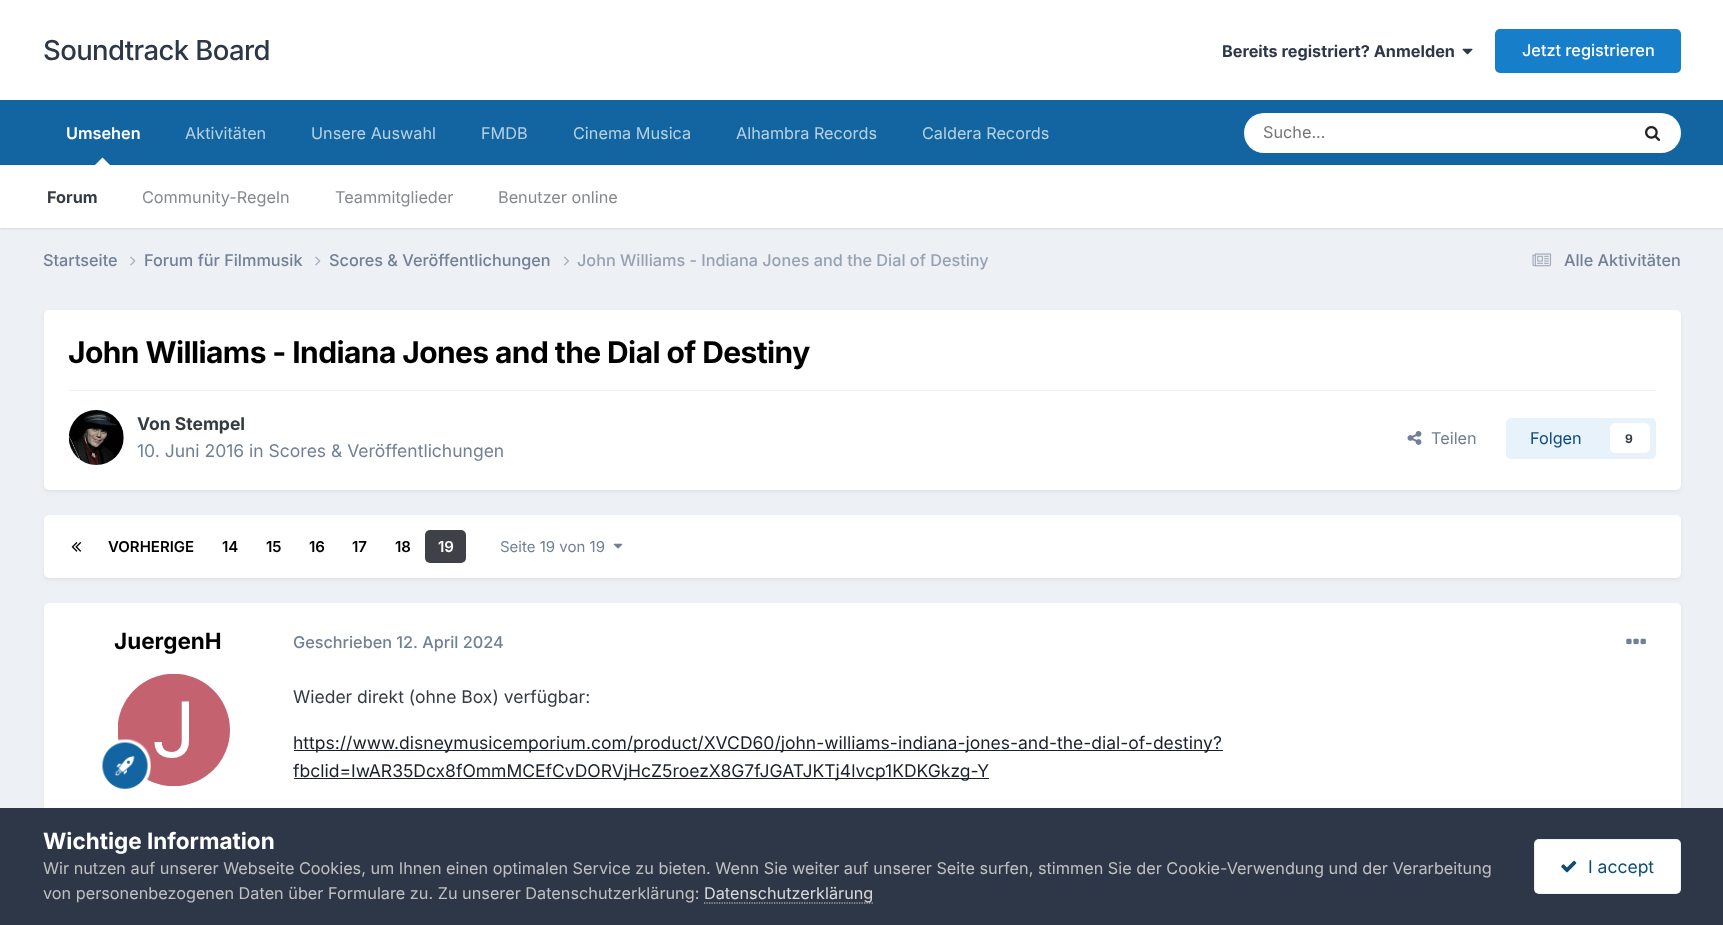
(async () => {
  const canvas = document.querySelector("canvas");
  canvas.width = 1723;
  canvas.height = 925;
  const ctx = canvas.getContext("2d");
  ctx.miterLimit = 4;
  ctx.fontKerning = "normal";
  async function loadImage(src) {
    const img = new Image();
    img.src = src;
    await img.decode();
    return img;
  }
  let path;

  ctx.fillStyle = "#edf0f4";
  ctx.fillRect(0, 0, 1723, 925);
  ctx.fillStyle = "#ffffff";
  ctx.fillRect(0, 0, 1723, 100);
  ctx.drawImage(await loadImage("img/1.png"), 1462, 48, 11, 7);
  ctx.fillStyle = "#177ec9";
  ctx.beginPath();
  ctx.roundRect(1495, 29, 186, 44, 5);
  ctx.fill();
  ctx.fillStyle = "#1265a1";
  ctx.fillRect(0, 100, 1723, 65);
  ctx.fillStyle = "rgba(0, 0, 0, 0.1)";
  ctx.filter = "blur(1px)";
  ctx.beginPath();
  ctx.rect(0, 166, 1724, 63);
  ctx.fill();
  ctx.filter = "none";
  ctx.fillStyle = "#ffffff";
  path = new Path2D("M110 165H95L102.5 157.5Z");
  ctx.fill(path);
  ctx.beginPath();
  ctx.roundRect(1244, 113, 437, 40, 20);
  ctx.fill();
  ctx.drawImage(await loadImage("img/2.png"), 1645, 126, 16, 15);
  ctx.fillRect(0, 165, 1723, 63);
  ctx.drawImage(await loadImage("img/3.png"), 130, 256, 6, 10);
  ctx.drawImage(await loadImage("img/3.png"), 315, 256, 6, 10);
  ctx.drawImage(await loadImage("img/4.png"), 564, 256, 5, 10);
  ctx.drawImage(await loadImage("img/5.png"), 1532, 253, 20, 14);
  ctx.fillStyle = "rgba(45, 55, 72, 0.1)";
  ctx.filter = "blur(2.5px)";
  ctx.beginPath();
  ctx.roundRect(45, 314, 1635, 177, 4);
  ctx.fill();
  ctx.filter = "none";
  ctx.fillStyle = "#ffffff";
  ctx.beginPath();
  ctx.roundRect(44, 310, 1637, 180, 5);
  ctx.fill();
  ctx.fillStyle = "#efeff0";
  ctx.fillRect(69, 390, 1587, 1);
  ctx.drawImage(await loadImage("img/6.png"), 68, 410, 56, 55);
  ctx.drawImage(await loadImage("img/7.png"), 1407, 431, 15, 14);
  ctx.fillStyle = "#e8f2fa";
  ctx.beginPath();
  ctx.roundRect(1506, 418, 150, 41, 5);
  ctx.fill();
  ctx.fillStyle = "#ffffff";
  ctx.beginPath();
  ctx.roundRect(1610, 423, 40, 30, 5);
  ctx.fill();
  ctx.fillStyle = "rgba(45, 55, 72, 0.1)";
  ctx.filter = "blur(2.5px)";
  ctx.beginPath();
  ctx.roundRect(45, 519, 1635, 60, 4);
  ctx.fill();
  ctx.filter = "none";
  ctx.fillStyle = "#ffffff";
  ctx.beginPath();
  ctx.roundRect(44, 515, 1637, 63, 5);
  ctx.fill();
  ctx.drawImage(await loadImage("img/8.png"), 71, 542, 11, 10);
  ctx.fillStyle = "#3e4148";
  ctx.beginPath();
  ctx.roundRect(425, 530, 41, 33, 5);
  ctx.fill();
  ctx.drawImage(await loadImage("img/9.png"), 613, 543, 10, 6);
  ctx.fillStyle = "rgba(45, 55, 72, 0.1)";
  ctx.filter = "blur(2.5px)";
  ctx.beginPath();
  ctx.roundRect(45, 606, 1635, 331, 4);
  ctx.fill();
  ctx.filter = "none";
  ctx.fillStyle = "#ffffff";
  ctx.beginPath();
  ctx.roundRect(44, 603, 1637, 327, 5);
  ctx.fill();
  ctx.drawImage(await loadImage("img/10.png"), 118, 674, 112, 112);
  ctx.drawImage(await loadImage("img/11.png"), 102, 739, 49, 50);
  ctx.drawImage(await loadImage("img/12.png"), 1626, 638, 20, 7);
  for (const [x, y, w, h, color] of [
    [294, 750, 929, 1, "#1a202c"],
    [294, 778, 695, 1, "#1a202c"],
    [0, 808, 1723, 117, "#2d3748"],
  ]) {
    ctx.fillStyle = color;
    ctx.fillRect(x, y, w, h);
  }
  path = new Path2D("M704 903H874");
  ctx.strokeStyle = "#dadada";
  ctx.lineWidth = 1.2;
  ctx.setLineDash([1.25, 1.25]);
  ctx.stroke(path);
  ctx.fillStyle = "#ffffff";
  ctx.beginPath();
  ctx.roundRect(1534, 839, 147, 55, 5);
  ctx.fill();
  ctx.beginPath();
  ctx.roundRect(1534.5, 839.5, 146, 54, 4.5);
  ctx.strokeStyle = "rgba(14, 76, 121, 0.07)";
  ctx.lineWidth = 1;
  ctx.setLineDash([]);
  ctx.stroke();
  ctx.drawImage(await loadImage("img/13.png"), 1561, 860, 16, 13);
  ctx.letterSpacing = "-0.6px";
  ctx.font = "500 27.5px Inter";
  ctx.fillStyle = "#2d3748";
  ctx.fillText("Soundtrack Board", 43, 60);
  ctx.letterSpacing = "0px";
  ctx.font = "bold 16.25px Inter";
  ctx.fillText("Bereits registriert? Anmelden", 1222, 57);
  ctx.font = "500 16.25px Inter";
  ctx.fillStyle = "#ffffff";
  ctx.fillText("Jetzt registrieren", 1522, 56);
  ctx.font = "16.25px Inter";
  ctx.fillStyle = "#b8d1e3";
  ctx.fillText("Aktivitäten", 185, 139);
  ctx.fillText("Cinema Musica", 573, 139);
  ctx.font = "600 16.25px Inter";
  ctx.fillStyle = "#ffffff";
  ctx.fillText("Umsehen", 66, 139);
  ctx.font = "bold 16.25px Inter";
  ctx.fillStyle = "#353c41";
  ctx.fillText("Forum", 47, 203);
  ctx.font = "16.25px Inter";
  ctx.fillStyle = "#868a8d";
  for (const [text, x, y] of [
    ["Community-Regeln", 142, 203],
    ["Teammitglieder", 335, 203],
    ["Benutzer online", 498, 203],
  ]) {
    ctx.fillText(text, x, y);
  }
  ctx.fillStyle = "#b8d1e3";
  for (const [text, x, y] of [
    ["Unsere Auswahl", 311, 139],
    ["FMDB", 481, 139],
    ["Alhambra Records", 736, 139],
    ["Caldera Records", 922, 139],
  ]) {
    ctx.fillText(text, x, y);
  }
  ctx.fillStyle = "#757575";
  ctx.fillText("Suche...", 1263, 138);
  ctx.font = "500 16.25px Inter";
  ctx.fillStyle = "#718096";
  for (const [text, x, y] of [
    ["Startseite", 43, 266],
    ["Forum für Filmmusik", 144, 266],
    ["Scores & Veröffentlichungen", 329, 266],
  ]) {
    ctx.fillText(text, x, y);
  }
  ctx.fillStyle = "#96a2b2";
  ctx.fillText("John Williams - Indiana Jones and the Dial of Destiny", 577, 266);
  ctx.fillStyle = "#718096";
  ctx.fillText("Alle Aktivitäten", 1564, 266);
  ctx.letterSpacing = "-0.6px";
  ctx.font = "bold 30px Inter";
  ctx.fillStyle = "#000000";
  ctx.fillText("John Williams - Indiana Jones and the Dial of Destiny", 68, 363);
  ctx.letterSpacing = "0px";
  ctx.font = "bold 17.5px Inter";
  ctx.fillStyle = "#353c41";
  ctx.fillText("Von Stempel", 137, 430);
  ctx.font = "17.5px Inter";
  ctx.fillStyle = "#718096";
  ctx.fillText("10. Juni 2016 in Scores & Veröffentlichungen", 137, 457);
  ctx.font = "16.25px Inter";
  ctx.fillText("Teilen", 1431, 444);
  ctx.fillStyle = "#0e4c79";
  ctx.fillText("Folgen", 1530, 444);
  ctx.font = "bold 12px Inter";
  ctx.fillStyle = "#353c41";
  ctx.fillText("9", 1625, 443);
  ctx.font = "600 15px Inter";
  ctx.fillStyle = "#000000";
  for (const [text, x, y] of [
    ["VORHERIGE", 108, 552],
    ["14", 222, 552],
    ["15", 266, 552],
    ["16", 309, 552],
    ["17", 352, 552],
    ["18", 395, 552],
  ]) {
    ctx.fillText(text, x, y);
  }
  ctx.fillStyle = "#ffffff";
  ctx.fillText("19", 438, 552);
  ctx.font = "15px Inter";
  ctx.fillStyle = "#718096";
  ctx.fillText("Seite 19 von 19", 500, 552);
  ctx.font = "bold 22.5px Inter";
  ctx.fillStyle = "#000000";
  ctx.fillText("JuergenH", 114, 649);
  ctx.font = "500 16.25px Inter";
  ctx.fillStyle = "#718096";
  ctx.fillText("Geschrieben 12. April 2024", 293, 648);
  ctx.font = "17.5px Inter";
  ctx.fillStyle = "#353c41";
  ctx.fillText("Wieder direkt (ohne Box) verfügbar:", 293, 703);
  ctx.fillStyle = "#1a202c";
  ctx.fillText("https://www.disneymusicemporium.com/product/XVCD60/john-williams-indiana-jones-and-the-dial-of-destiny?", 293, 749);
  ctx.fillText("fbclid=IwAR35Dcx8fOmmMCEfCvDORVjHcZ5roezX8G7fJGATJKTj4lvcp1KDKGkzg-Y", 293, 777);
  ctx.font = "bold 22.5px Inter";
  ctx.fillStyle = "#ffffff";
  ctx.fillText("Wichtige Information", 43, 849);
  ctx.font = "16.25px Inter";
  ctx.fillStyle = "#c0c0c0";
  ctx.fillText("Wir nutzen auf unserer Webseite Cookies, um Ihnen einen optimalen Service zu bieten. Wenn Sie weiter auf unserer Seite surfen, stimmen Sie der Cookie-Verwendung und der Verarbeitung", 43, 874);
  ctx.fillText("von personenbezogenen Daten über Formulare zu. Zu unserer Datenschutzerklärung:", 43, 899);
  ctx.fillStyle = "#dadada";
  ctx.fillText("Datenschutzerklärung", 704, 899);
  ctx.font = "17.5px Inter";
  ctx.fillStyle = "#0e4c79";
  ctx.fillText("I accept", 1588, 873);
})();
